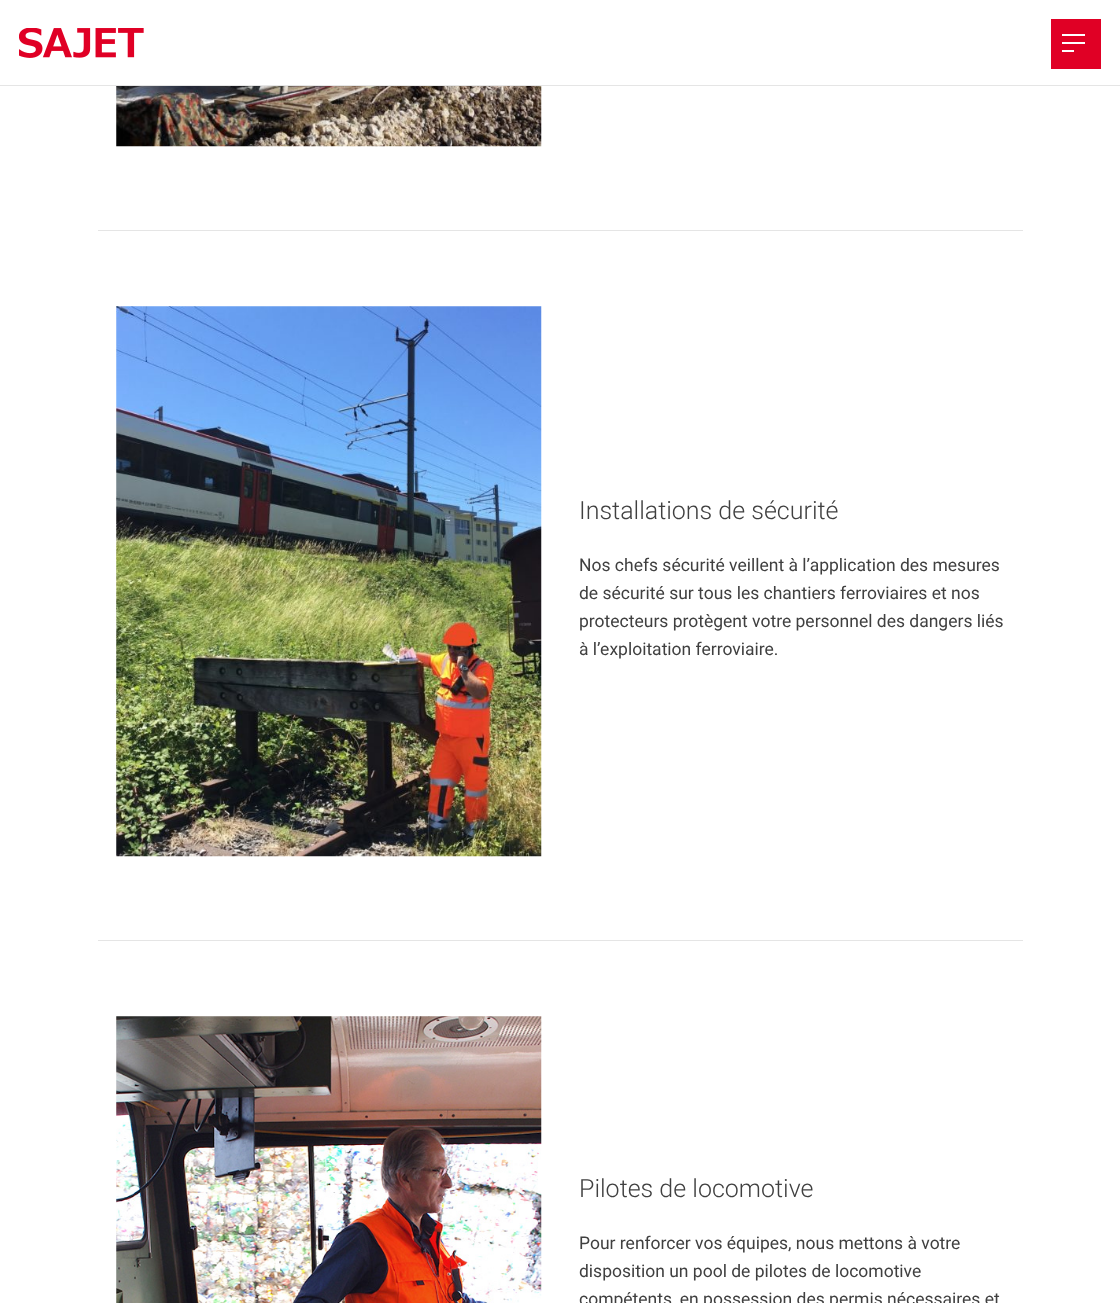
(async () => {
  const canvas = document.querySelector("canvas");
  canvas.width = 1120;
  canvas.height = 1303;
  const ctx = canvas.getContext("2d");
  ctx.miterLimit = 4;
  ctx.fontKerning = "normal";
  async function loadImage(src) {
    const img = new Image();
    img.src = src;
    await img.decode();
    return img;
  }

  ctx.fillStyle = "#ffffff";
  ctx.fillRect(0, 0, 1120, 1303);
  ctx.fillStyle = "#e5e5e5";
  ctx.fillRect(0, 85, 1120, 1);
  ctx.drawImage(await loadImage("img/1.png"), 19, 28, 125, 30);
  for (const [x, y, w, h, color] of [
    [1051, 19, 50, 50, "#e00025"],
    [1062, 34, 23, 2, "#ffffff"],
    [1062, 42, 23, 2, "#ffffff"],
    [1062, 50, 12, 2, "#ffffff"],
    [98, 230, 925, 1, "#e5e5e5"],
  ]) {
    ctx.fillStyle = color;
    ctx.fillRect(x, y, w, h);
  }
  ctx.drawImage(await loadImage("img/2.png"), 116, 86, 426, 61);
  ctx.fillRect(98, 940, 925, 1);
  ctx.drawImage(await loadImage("img/3.png"), 116, 306, 426, 551);
  ctx.drawImage(await loadImage("img/4.png"), 116, 1016, 426, 287);
  ctx.font = "300 25px Roboto";
  ctx.fillStyle = "#404040";
  ctx.fillText("Installations de sécurité", 579, 519);
  ctx.font = "17.5px Roboto";
  for (const [text, x, y] of [
    ["Nos chefs sécurité veillent à l’application des mesures", 579, 571],
    ["de sécurité sur tous les chantiers ferroviaires et nos", 579, 599],
    ["protecteurs protègent votre personnel des dangers liés", 579, 627],
    ["à l’exploitation ferroviaire.", 579, 655],
  ]) {
    ctx.fillText(text, x, y);
  }
  ctx.font = "300 25px Roboto";
  ctx.fillText("Pilotes de locomotive", 579, 1197);
  ctx.font = "17.5px Roboto";
  for (const [text, x, y] of [
    ["Pour renforcer vos équipes, nous mettons à votre", 579, 1249],
    ["disposition un pool de pilotes de locomotive", 579, 1277],
    ["compétents, en possession des permis nécessaires et", 579, 1305],
  ]) {
    ctx.fillText(text, x, y);
  }
})();
